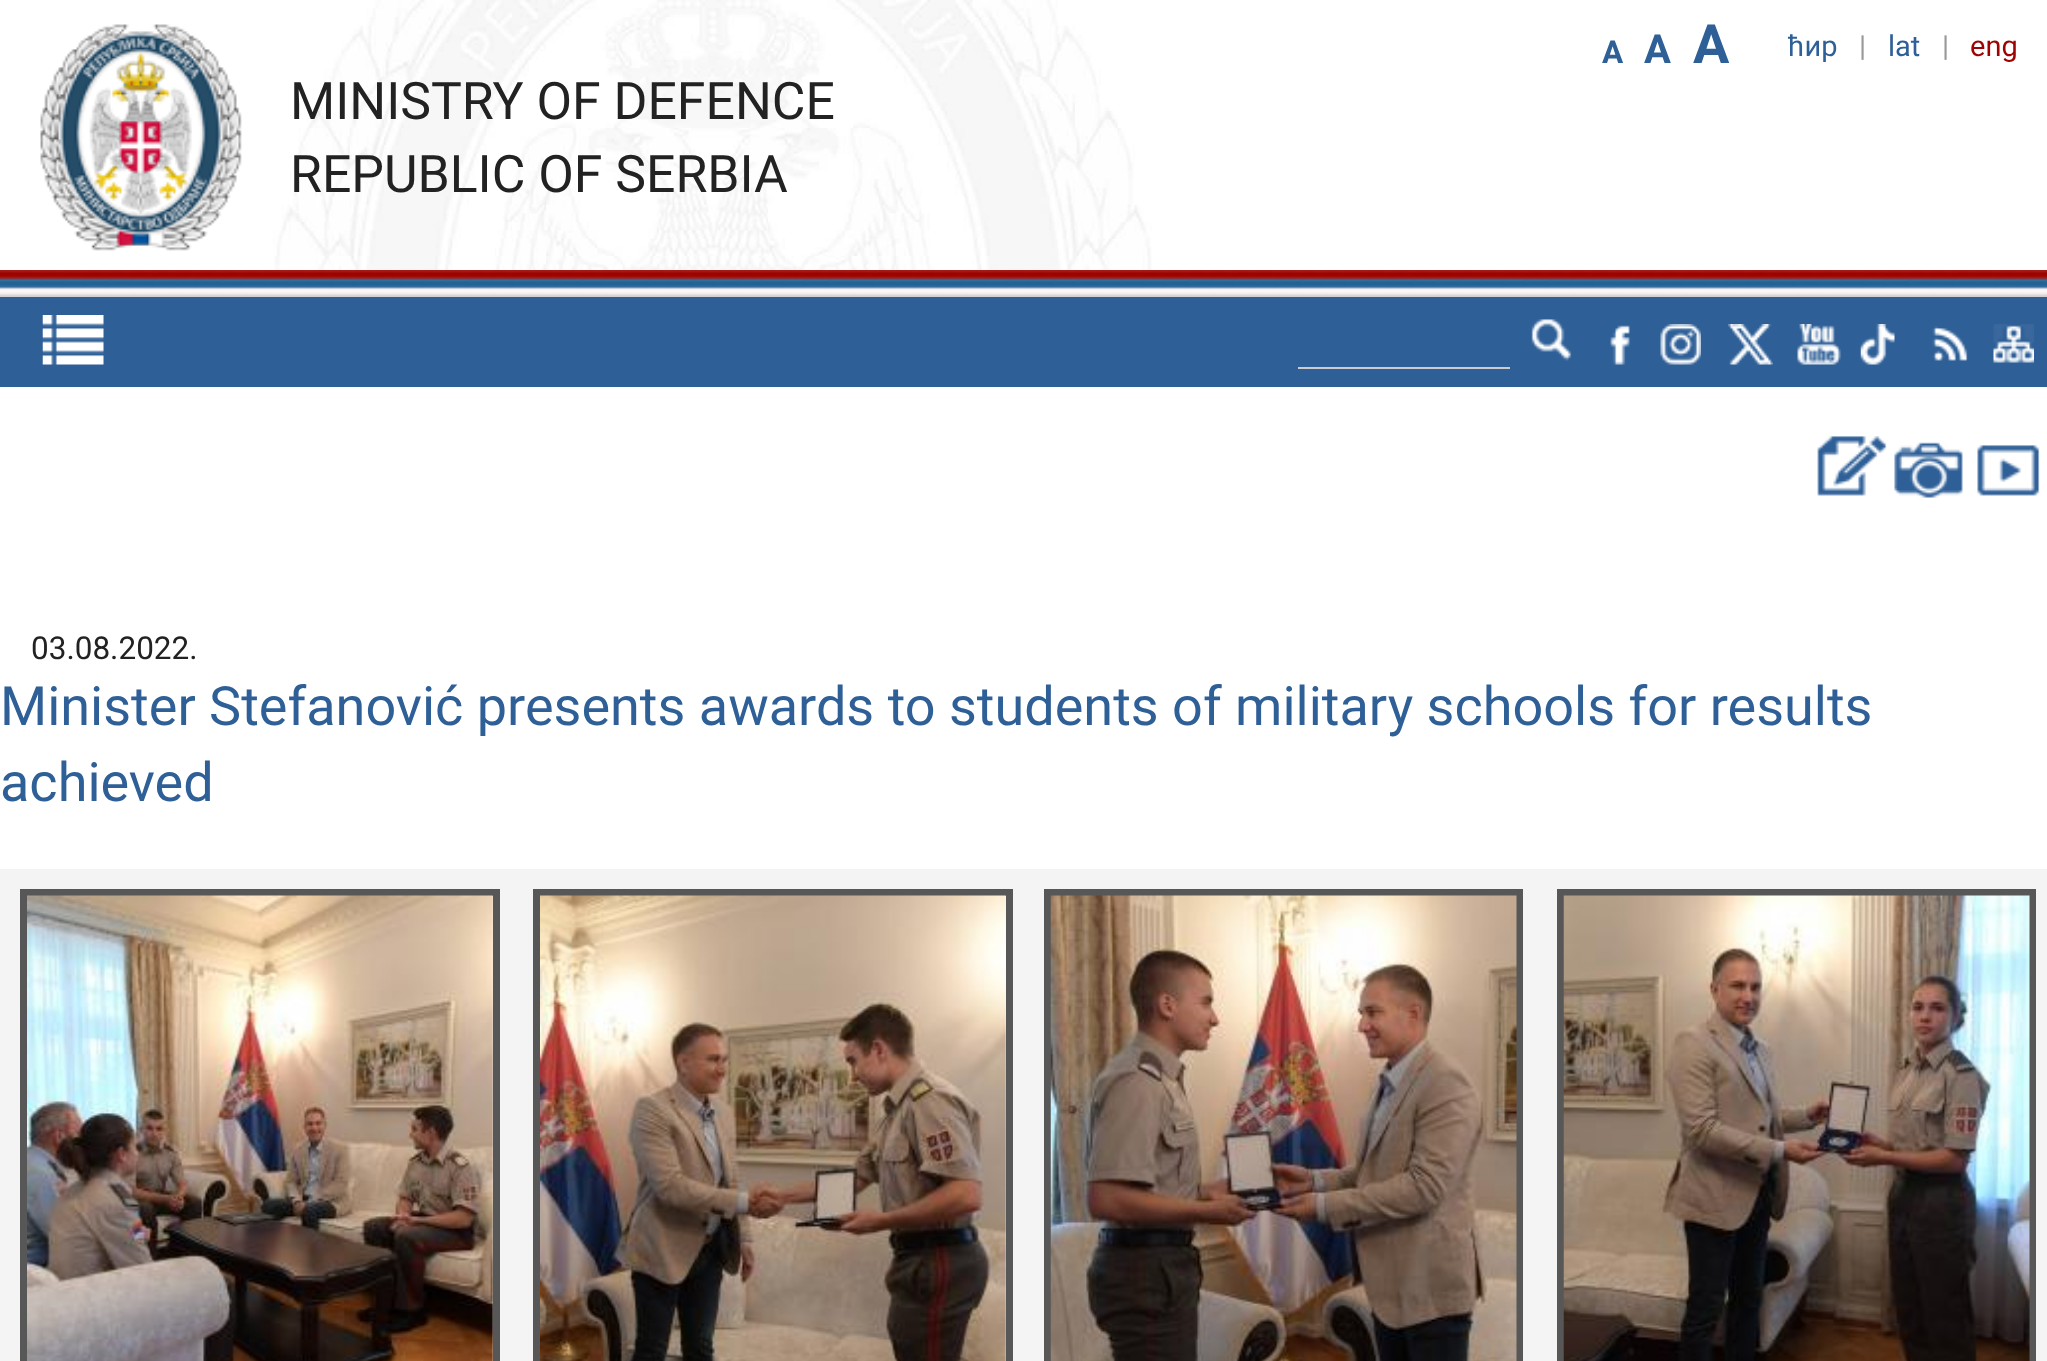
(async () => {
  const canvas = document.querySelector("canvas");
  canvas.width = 2047;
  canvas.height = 1361;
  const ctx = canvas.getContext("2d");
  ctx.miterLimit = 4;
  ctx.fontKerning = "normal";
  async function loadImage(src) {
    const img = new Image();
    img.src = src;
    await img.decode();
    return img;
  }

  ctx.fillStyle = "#ffffff";
  ctx.fillRect(0, 0, 2047, 1361);
  ctx.drawImage(await loadImage("img/1.png"), 0, 0, 2047, 270);
  ctx.drawImage(await loadImage("img/2.png"), 40, 24, 202, 227);
  ctx.drawImage(await loadImage("img/3.png"), 0, 270, 2047, 27);
  ctx.fillStyle = "#2e5f97";
  ctx.fillRect(0, 297, 2047, 90);
  ctx.drawImage(await loadImage("img/4.png"), 42, 315, 62, 50);
  ctx.drawImage(await loadImage("img/5.png"), 1531, 319, 41, 42);
  ctx.fillStyle = "#cccccc";
  ctx.fillRect(1298, 367, 212, 2);
  ctx.drawImage(await loadImage("img/6.png"), 1610, 325, 20, 40);
  ctx.drawImage(await loadImage("img/7.png"), 1660, 324, 41, 41);
  ctx.drawImage(await loadImage("img/8.png"), 1728, 324, 45, 41);
  ctx.drawImage(await loadImage("img/9.png"), 1797, 324, 44, 41);
  ctx.drawImage(await loadImage("img/10.png"), 1860, 324, 35, 41);
  ctx.drawImage(await loadImage("img/11.png"), 1932, 326, 36, 35);
  ctx.drawImage(await loadImage("img/12.png"), 1993, 324, 41, 39);
  ctx.drawImage(await loadImage("img/13.png"), 1817, 436, 70, 60);
  ctx.drawImage(await loadImage("img/14.png"), 1894, 442, 69, 56);
  ctx.drawImage(await loadImage("img/15.png"), 1977, 445, 63, 51);
  ctx.fillStyle = "#f4f4f4";
  ctx.fillRect(0, 869, 2047, 492);
  ctx.strokeStyle = "#575757";
  ctx.lineWidth = 7;
  ctx.strokeRect(23.5, 892.5, 473, 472);
  ctx.drawImage(await loadImage("img/16.png"), 27, 895, 466, 466);
  ctx.strokeRect(536.5, 892.5, 473, 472);
  ctx.drawImage(await loadImage("img/17.png"), 540, 895, 466, 466);
  ctx.strokeRect(1047.5, 892.5, 472, 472);
  ctx.drawImage(await loadImage("img/18.png"), 1050, 895, 467, 466);
  ctx.strokeRect(1560.5, 892.5, 472, 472);
  ctx.drawImage(await loadImage("img/19.png"), 1563, 895, 467, 466);
  ctx.font = "bold 31.5px Roboto";
  ctx.fillStyle = "#2e5f97";
  ctx.fillText("A", 1602, 63);
  ctx.font = "bold 40px Roboto";
  ctx.fillText("A", 1644, 63);
  ctx.font = "bold 54px Roboto";
  ctx.fillText("A", 1693, 63);
  ctx.font = "29px Roboto";
  ctx.fillText("ћир", 1788, 56);
  ctx.fillStyle = "#999999";
  ctx.fillText("|", 1859, 56);
  ctx.fillStyle = "#2e5f97";
  ctx.fillText("lat", 1888, 56);
  ctx.fillStyle = "#999999";
  ctx.fillText("|", 1942, 56);
  ctx.fillStyle = "#9e0203";
  ctx.fillText("eng", 1970, 56);
  ctx.font = "51.75px Roboto";
  ctx.fillStyle = "#222222";
  ctx.fillText("MINISTRY OF DEFENCE", 290, 119);
  ctx.fillText("REPUBLIC OF SERBIA", 290, 192);
  ctx.font = "31.5px Roboto";
  ctx.fillText("03.08.2022.", 31, 659);
  ctx.font = "54px Roboto";
  ctx.fillStyle = "#2e5f97";
  ctx.fillText("Minister Stefanović presents awards to students of military schools for results", 0, 725);
  ctx.fillText("achieved", 0, 801);
})();
